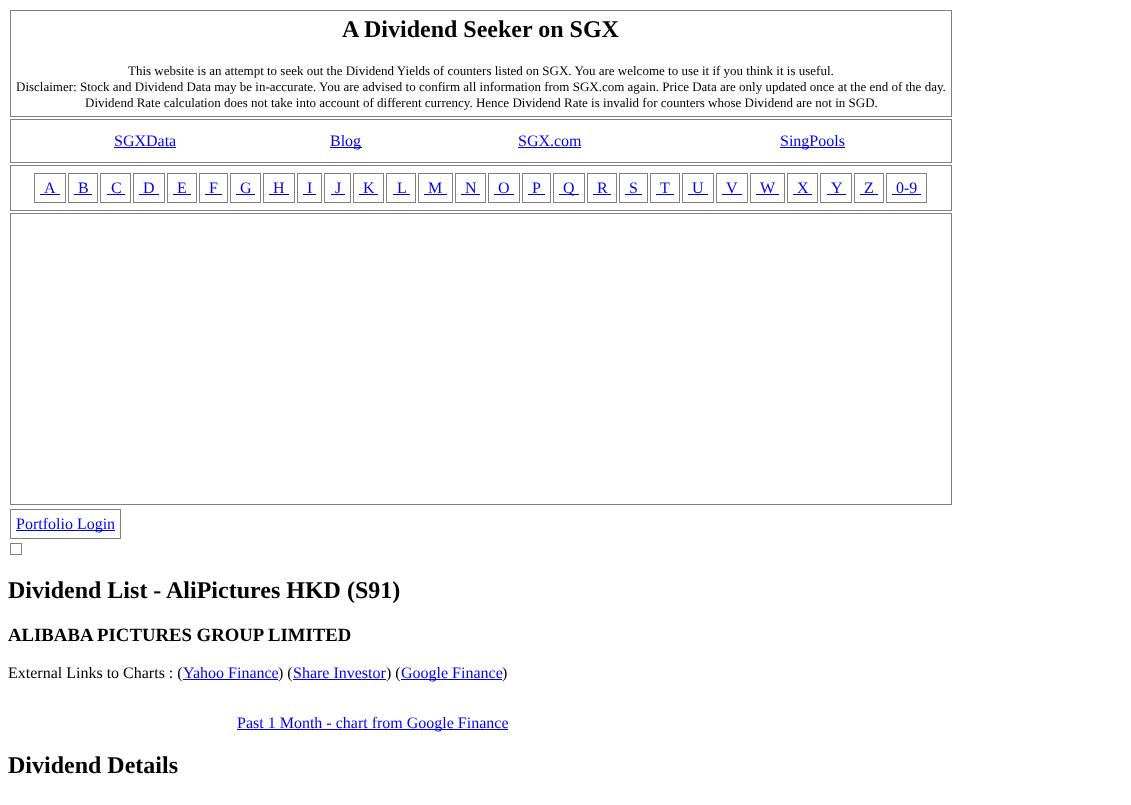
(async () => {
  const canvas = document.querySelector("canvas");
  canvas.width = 1131;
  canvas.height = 805;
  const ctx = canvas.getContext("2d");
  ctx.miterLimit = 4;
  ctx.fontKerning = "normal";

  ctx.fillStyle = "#ffffff";
  ctx.fillRect(0, 0, 1131, 805);
  ctx.strokeStyle = "#808080";
  ctx.strokeRect(10.5, 10.5, 941, 106);
  ctx.strokeRect(10.5, 119.5, 941, 43);
  for (const [x, y, w, h, color] of [
    [114, 147, 62, 1, "#0000ee"],
    [330, 147, 32, 1, "#0000ee"],
    [518, 147, 63, 1, "#0000ee"],
    [780, 147, 65, 1, "#0000ee"],
  ]) {
    ctx.fillStyle = color;
    ctx.fillRect(x, y, w, h);
  }
  ctx.strokeRect(10.5, 165.5, 941, 45);
  ctx.strokeRect(34.5, 173.5, 31, 29);
  ctx.fillRect(40, 194, 20, 1);
  ctx.strokeRect(68.5, 173.5, 29, 29);
  ctx.fillRect(74, 194, 18, 1);
  ctx.strokeRect(100.5, 173.5, 30, 29);
  ctx.fillRect(107, 194, 18, 1);
  ctx.strokeRect(133.5, 173.5, 31, 29);
  ctx.fillRect(139, 194, 20, 1);
  ctx.strokeRect(167.5, 173.5, 29, 29);
  ctx.fillRect(173, 194, 18, 1);
  ctx.strokeRect(199.5, 173.5, 28, 29);
  ctx.fillRect(205, 194, 17, 1);
  ctx.strokeRect(230.5, 173.5, 30, 29);
  ctx.fillRect(236, 194, 19, 1);
  ctx.strokeRect(263.5, 173.5, 31, 29);
  ctx.fillRect(269, 194, 20, 1);
  ctx.strokeRect(297.5, 173.5, 24, 29);
  ctx.fillRect(303, 194, 13, 1);
  ctx.strokeRect(324.5, 173.5, 26, 29);
  ctx.fillRect(331, 194, 14, 1);
  ctx.strokeRect(353.5, 173.5, 30, 29);
  ctx.fillRect(359, 194, 19, 1);
  ctx.strokeRect(386.5, 173.5, 29, 29);
  ctx.fillRect(393, 194, 17, 1);
  ctx.strokeRect(418.5, 173.5, 34, 29);
  ctx.fillRect(424, 194, 23, 1);
  ctx.strokeRect(455.5, 173.5, 30, 29);
  ctx.fillRect(461, 194, 19, 1);
  ctx.strokeRect(488.5, 173.5, 31, 29);
  ctx.fillRect(494, 194, 20, 1);
  ctx.strokeRect(522.5, 173.5, 28, 29);
  ctx.fillRect(528, 194, 17, 1);
  ctx.strokeRect(553.5, 173.5, 31, 29);
  ctx.fillRect(559, 194, 20, 1);
  ctx.strokeRect(587.5, 173.5, 29, 29);
  ctx.fillRect(593, 194, 18, 1);
  ctx.strokeRect(619.5, 173.5, 28, 29);
  ctx.fillRect(625, 194, 17, 1);
  ctx.strokeRect(650.5, 173.5, 29, 29);
  ctx.fillRect(656, 194, 18, 1);
  ctx.strokeRect(682.5, 173.5, 31, 29);
  ctx.fillRect(688, 194, 20, 1);
  ctx.strokeRect(716.5, 173.5, 31, 29);
  ctx.fillRect(722, 194, 20, 1);
  ctx.strokeRect(750.5, 173.5, 34, 29);
  ctx.fillRect(756, 194, 23, 1);
  ctx.strokeRect(787.5, 173.5, 30, 29);
  ctx.fillRect(793, 194, 19, 1);
  ctx.strokeRect(820.5, 173.5, 31, 29);
  ctx.fillRect(827, 194, 19, 1);
  ctx.strokeRect(854.5, 173.5, 29, 29);
  ctx.fillRect(860, 194, 18, 1);
  ctx.strokeRect(886.5, 173.5, 40, 29);
  ctx.fillRect(892, 194, 29, 1);
  ctx.strokeRect(10.5, 213.5, 941, 291);
  ctx.strokeRect(10.5, 509.5, 110, 29);
  ctx.fillRect(16, 530, 99, 1);
  ctx.strokeRect(10.5, 543.5, 11, 11);
  for (const [x, y, w, h, color] of [
    [183, 679, 95, 1, "#0000ee"],
    [293, 679, 93, 1, "#0000ee"],
    [401, 679, 101, 1, "#0000ee"],
    [237, 729, 271, 1, "#0000ee"],
  ]) {
    ctx.fillStyle = color;
    ctx.fillRect(x, y, w, h);
  }
  ctx.font = "bold 24px Liberation Serif";
  ctx.fillStyle = "#000000";
  ctx.fillText("A Dividend Seeker on SGX", 342, 37);
  ctx.font = "13px Liberation Serif";
  for (const [text, x, y] of [
    ["This website is an attempt to seek out the Dividend Yields of counters listed on SGX. You are welcome to use it if you think it is useful.", 128, 75],
    ["Disclaimer: Stock and Dividend Data may be in-accurate. You are advised to confirm all information from SGX.com again. Price Data are only updated once at the end of the day.", 16, 91],
    ["Dividend Rate calculation does not take into account of different currency. Hence Dividend Rate is invalid for counters whose Dividend are not in SGD.", 85, 107],
  ]) {
    ctx.fillText(text, x, y);
  }
  ctx.font = "16px Liberation Serif";
  ctx.fillStyle = "#0000ee";
  for (const [text, x, y] of [
    ["SGXData", 114, 146],
    ["Blog", 330, 146],
    ["SGX.com", 518, 146],
    ["SingPools", 780, 146],
    ["A", 44, 193],
    ["B", 78, 193],
    ["C", 111, 193],
    ["D", 143, 193],
    ["E", 177, 193],
    ["F", 209, 193],
    ["G", 240, 193],
    ["H", 273, 193],
    ["I", 307, 193],
    ["J", 335, 193],
    ["K", 363, 193],
    ["L", 397, 193],
    ["M", 428, 193],
    ["N", 465, 193],
    ["O", 498, 193],
    ["P", 532, 193],
    ["Q", 563, 193],
    ["R", 597, 193],
    ["S", 629, 193],
    ["T", 660, 193],
    ["U", 692, 193],
    ["V", 726, 193],
    ["W", 760, 193],
    ["X", 797, 193],
    ["Y", 831, 193],
    ["Z", 864, 193],
    ["0-9", 896, 193],
    ["Portfolio Login", 16, 529],
  ]) {
    ctx.fillText(text, x, y);
  }
  ctx.font = "bold 24px Liberation Serif";
  ctx.fillStyle = "#000000";
  ctx.fillText("Dividend List - AliPictures HKD (S91)", 8, 598);
  ctx.font = "bold 18.75px Liberation Serif";
  ctx.fillText("ALIBABA PICTURES GROUP LIMITED", 8, 641);
  ctx.font = "16px Liberation Serif";
  ctx.fillText("External Links to Charts : (", 8, 678);
  ctx.fillStyle = "#0000ee";
  ctx.fillText("Yahoo Finance", 183, 678);
  ctx.fillStyle = "#000000";
  ctx.fillText(") (", 278, 678);
  ctx.fillStyle = "#0000ee";
  ctx.fillText("Share Investor", 293, 678);
  ctx.fillStyle = "#000000";
  ctx.fillText(") (", 386, 678);
  ctx.fillStyle = "#0000ee";
  ctx.fillText("Google Finance", 401, 678);
  ctx.fillStyle = "#000000";
  ctx.fillText(")", 502, 678);
  ctx.fillStyle = "#0000ee";
  ctx.fillText("Past 1 Month - chart from Google Finance", 237, 728);
  ctx.font = "bold 24px Liberation Serif";
  ctx.fillStyle = "#000000";
  ctx.fillText("Dividend Details", 8, 773);
})();
